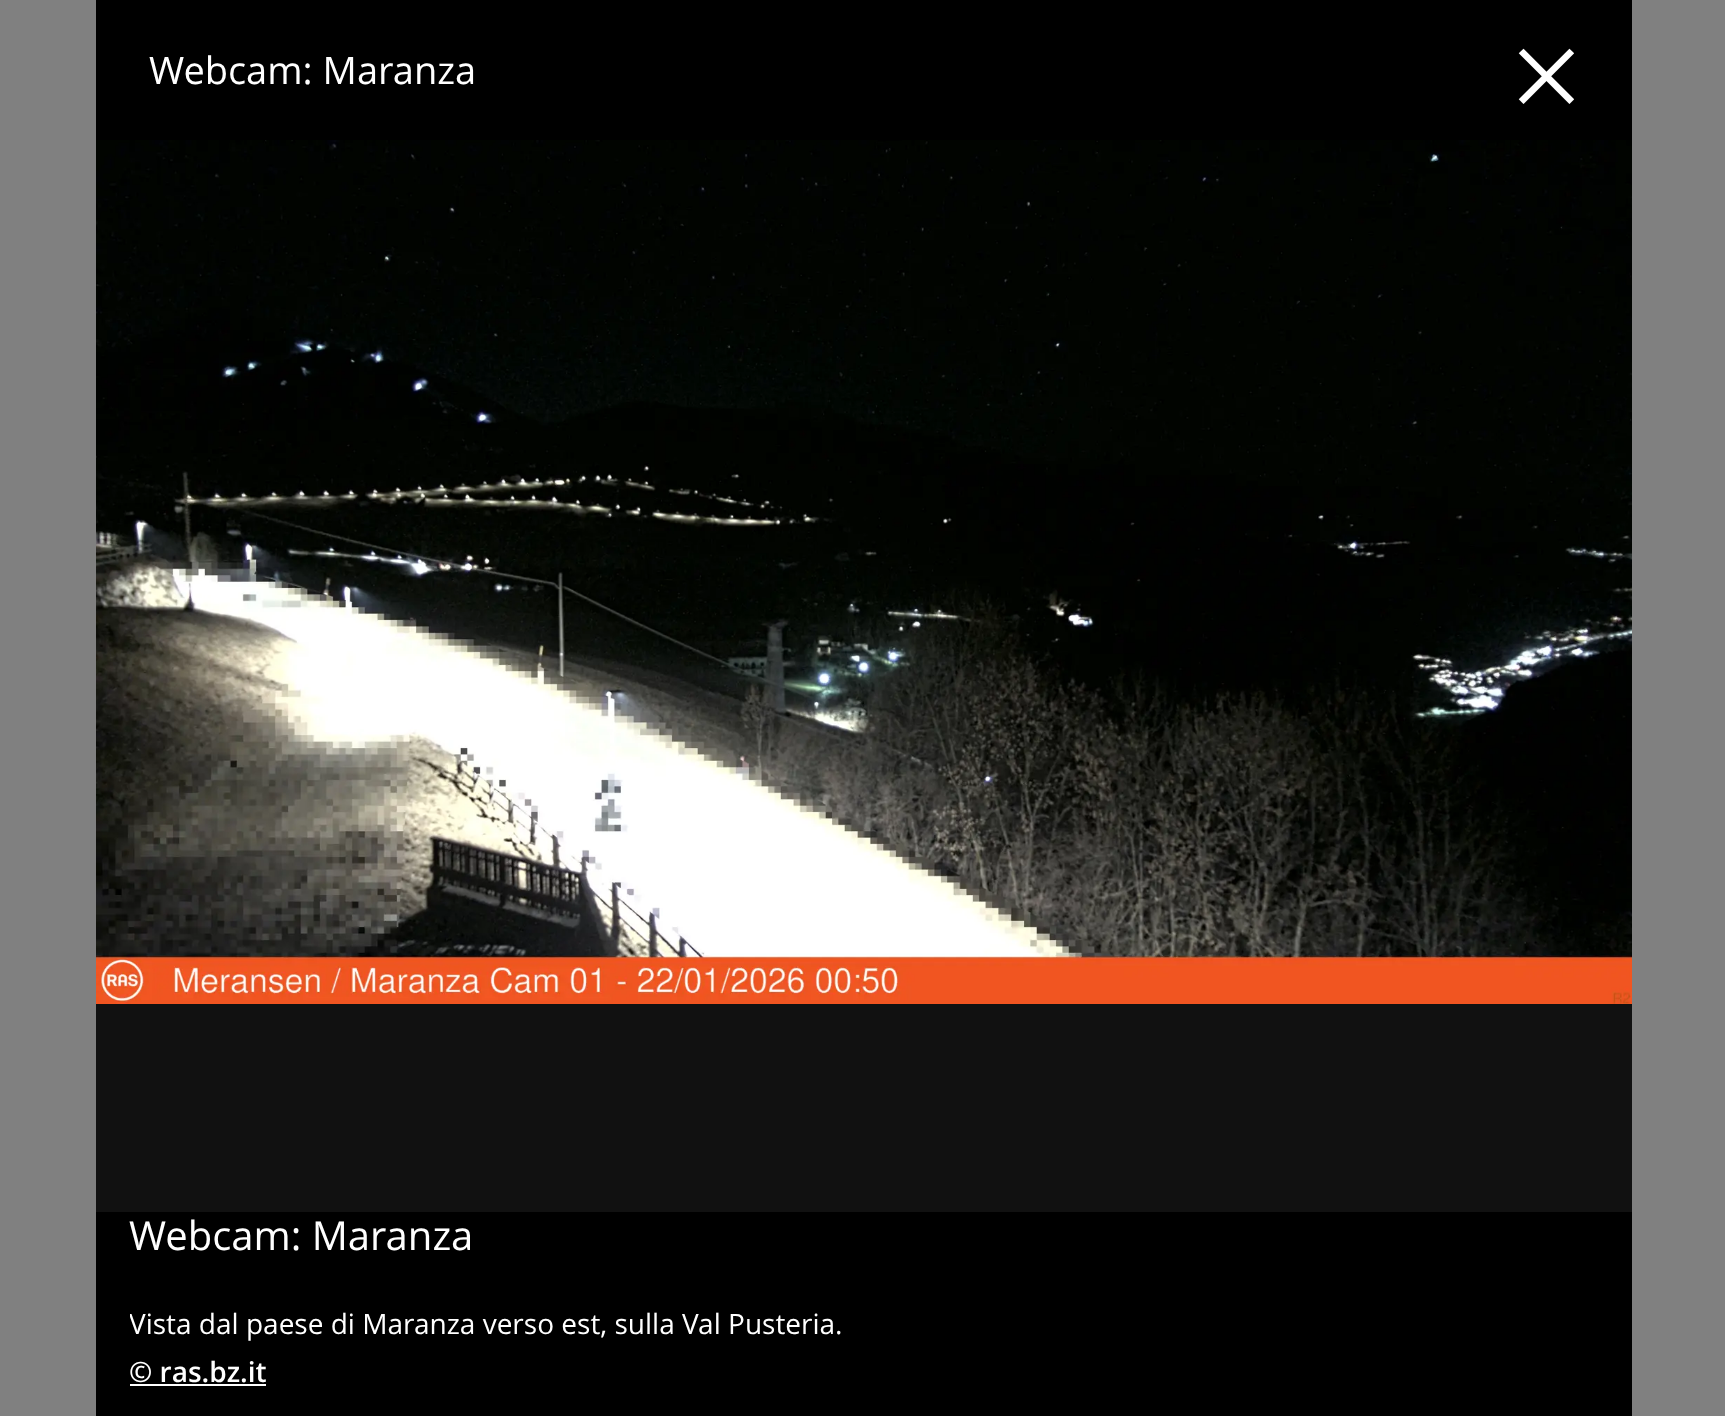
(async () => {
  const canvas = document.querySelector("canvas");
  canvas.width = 1725;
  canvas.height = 1416;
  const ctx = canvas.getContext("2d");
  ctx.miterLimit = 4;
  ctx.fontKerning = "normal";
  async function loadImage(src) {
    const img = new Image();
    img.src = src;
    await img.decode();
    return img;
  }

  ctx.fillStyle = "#808080";
  ctx.fillRect(0, 0, 1725, 1416);
  ctx.fillStyle = "#000000";
  ctx.fillRect(96, 0, 1536, 1416);
  ctx.fillStyle = "#111111";
  ctx.fillRect(96, 1004, 1536, 208);
  ctx.drawImage(await loadImage("img/1.png"), 96, 140, 1536, 864);
  ctx.fillStyle = "#ffffff";
  ctx.fillRect(130, 1384, 136, 2);
  ctx.font = "38px Open Sans";
  ctx.fillText("Webcam: Maranza", 149, 84);
  ctx.font = "80px FreeSans";
  ctx.fillText("✕", 1516, 104);
  ctx.font = "40px Open Sans";
  ctx.fillText("Webcam: Maranza", 129, 1250);
  ctx.save();
  ctx.beginPath();
  ctx.rect(130, 1212, 1468, 184);
  ctx.clip();
  ctx.font = "28px Open Sans";
  ctx.fillText("Vista dal paese di Maranza verso est, sulla Val Pusteria.", 129, 1334);
  ctx.restore();
  ctx.font = "600 28px Open Sans";
  ctx.fillText("© ras.bz.it", 129, 1382);
})();
